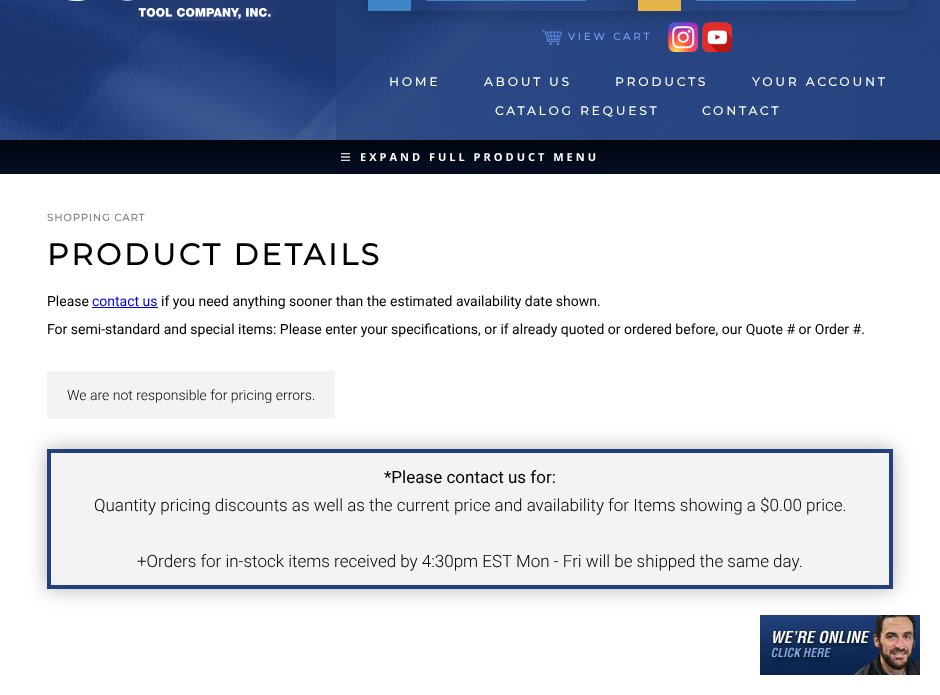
(async () => {
  const canvas = document.querySelector("canvas");
  canvas.width = 940;
  canvas.height = 695;
  const ctx = canvas.getContext("2d");
  ctx.miterLimit = 4;
  ctx.fontKerning = "normal";
  async function loadImage(src) {
    const img = new Image();
    img.src = src;
    await img.decode();
    return img;
  }
  let gradient, path;

  ctx.fillStyle = "#ffffff";
  ctx.fillRect(0, 0, 940, 695);
  gradient = ctx.createLinearGradient(470, 140, 470, 174);
  gradient.addColorStop(0, "#020712");
  gradient.addColorStop(1, "#060e23");
  ctx.fillStyle = gradient;
  ctx.fillRect(0, 140, 940, 34);
  ctx.drawImage(await loadImage("img/7.png"), 341, 153, 9, 8);
  ctx.fillStyle = "rgba(0, 0, 0, 0.4)";
  ctx.filter = "blur(10px)";
  ctx.beginPath();
  ctx.rect(0, -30, 940, 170);
  ctx.fill();
  ctx.filter = "none";
  ctx.drawImage(await loadImage("img/1.png"), 0, 0, 940, 140);
  ctx.drawImage(await loadImage("img/2.png"), 67, 0, 207, 21);
  ctx.save();
  path = new Path2D("M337 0H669V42H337ZM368-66H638V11H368Z");
  ctx.clip(path, "evenodd");
  ctx.fillStyle = "rgba(0, 0, 0, 0.3)";
  ctx.filter = "blur(10px)";
  ctx.beginPath();
  ctx.rect(368, -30, 270, 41);
  ctx.fill();
  ctx.filter = "none";
  ctx.restore();
  ctx.fillStyle = "#3d85c6";
  ctx.fillRect(368, 0, 43, 11);
  ctx.fillRect(426, 0, 160, 1);
  ctx.save();
  path = new Path2D("M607 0H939V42H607ZM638-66H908V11H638Z");
  ctx.clip(path, "evenodd");
  ctx.fillStyle = "rgba(0, 0, 0, 0.3)";
  ctx.filter = "blur(10px)";
  ctx.beginPath();
  ctx.rect(638, -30, 270, 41);
  ctx.fill();
  ctx.filter = "none";
  ctx.restore();
  ctx.fillStyle = "#e6b448";
  ctx.fillRect(638, 0, 43, 11);
  ctx.fillStyle = "#3d85c6";
  ctx.fillRect(696, 0, 160, 1);
  ctx.drawImage(await loadImage("img/3.png"), 542, 30, 20, 15);
  ctx.drawImage(await loadImage("img/4.png"), 668, 22, 30, 30);
  ctx.drawImage(await loadImage("img/5.png"), 702, 22, 30, 30);
  ctx.fillStyle = "#f3f3f3";
  ctx.fillRect(47, 371, 288, 48);
  ctx.fillStyle = "rgba(0, 0, 0, 0.3)";
  ctx.filter = "blur(10px)";
  ctx.beginPath();
  ctx.rect(47, 449, 846, 140);
  ctx.fill();
  ctx.filter = "none";
  ctx.drawImage(await loadImage("img/6.png"), 760, 615, 160, 60);
  ctx.fillStyle = "#0000ee";
  ctx.fillRect(92, 307, 66, 1);
  ctx.fillStyle = "#f3f3f3";
  ctx.beginPath();
  ctx.rect(49, 451, 842, 136);
  ctx.fill();
  ctx.strokeStyle = "#23407c";
  ctx.lineWidth = 4;
  ctx.stroke();
  ctx.letterSpacing = "3px";
  ctx.font = "bold 10px Montserrat";
  ctx.fillStyle = "#739ffc";
  ctx.fillText("VIEW CART", 568, 40);
  ctx.font = "bold 12px Montserrat";
  ctx.fillStyle = "#ffffff";
  for (const [text, x, y] of [
    ["HOME", 389, 86],
    ["ABOUT US", 484, 86],
    ["PRODUCTS", 615, 86],
    ["YOUR ACCOUNT", 752, 86],
    ["CATALOG REQUEST", 495, 115],
    ["CONTACT", 702, 115],
  ]) {
    ctx.fillText(text, x, y);
  }
  ctx.font = "bold 11px Open Sans";
  ctx.fillText("EXPAND FULL PRODUCT MENU", 360, 161);
  ctx.letterSpacing = "1px";
  ctx.font = "bold 10px Montserrat";
  ctx.fillStyle = "#808080";
  ctx.fillText("SHOPPING CART", 47, 221);
  ctx.letterSpacing = "3px";
  ctx.font = "bold 30px Montserrat";
  ctx.fillStyle = "#000000";
  ctx.fillText("PRODUCT DETAILS", 47, 265);
  ctx.letterSpacing = "0px";
  ctx.font = "14px Roboto";
  ctx.fillText("Please", 47, 306);
  ctx.fillStyle = "#0000ee";
  ctx.fillText("contact us", 92, 306);
  ctx.fillStyle = "#000000";
  ctx.fillText("if you need anything sooner than the estimated availability date shown.", 161, 306);
  ctx.fillText("For semi-standard and special items: Please enter your specifications, or if already quoted or ordered before, our Quote # or Order #.", 47, 334);
  ctx.font = "300 14px Roboto";
  ctx.fillText("We are not responsible for pricing errors.", 67, 400);
  ctx.font = "17px Roboto";
  ctx.fillText("*Please contact us for:", 384, 483);
  ctx.font = "300 17px Roboto";
  ctx.fillText("Quantity pricing discounts as well as the current price and availability for Items showing a $0.00 price.", 94, 511);
  ctx.fillText("+Orders for in-stock items received by 4:30pm EST Mon - Fri will be shipped the same day.", 137, 567);
})();
